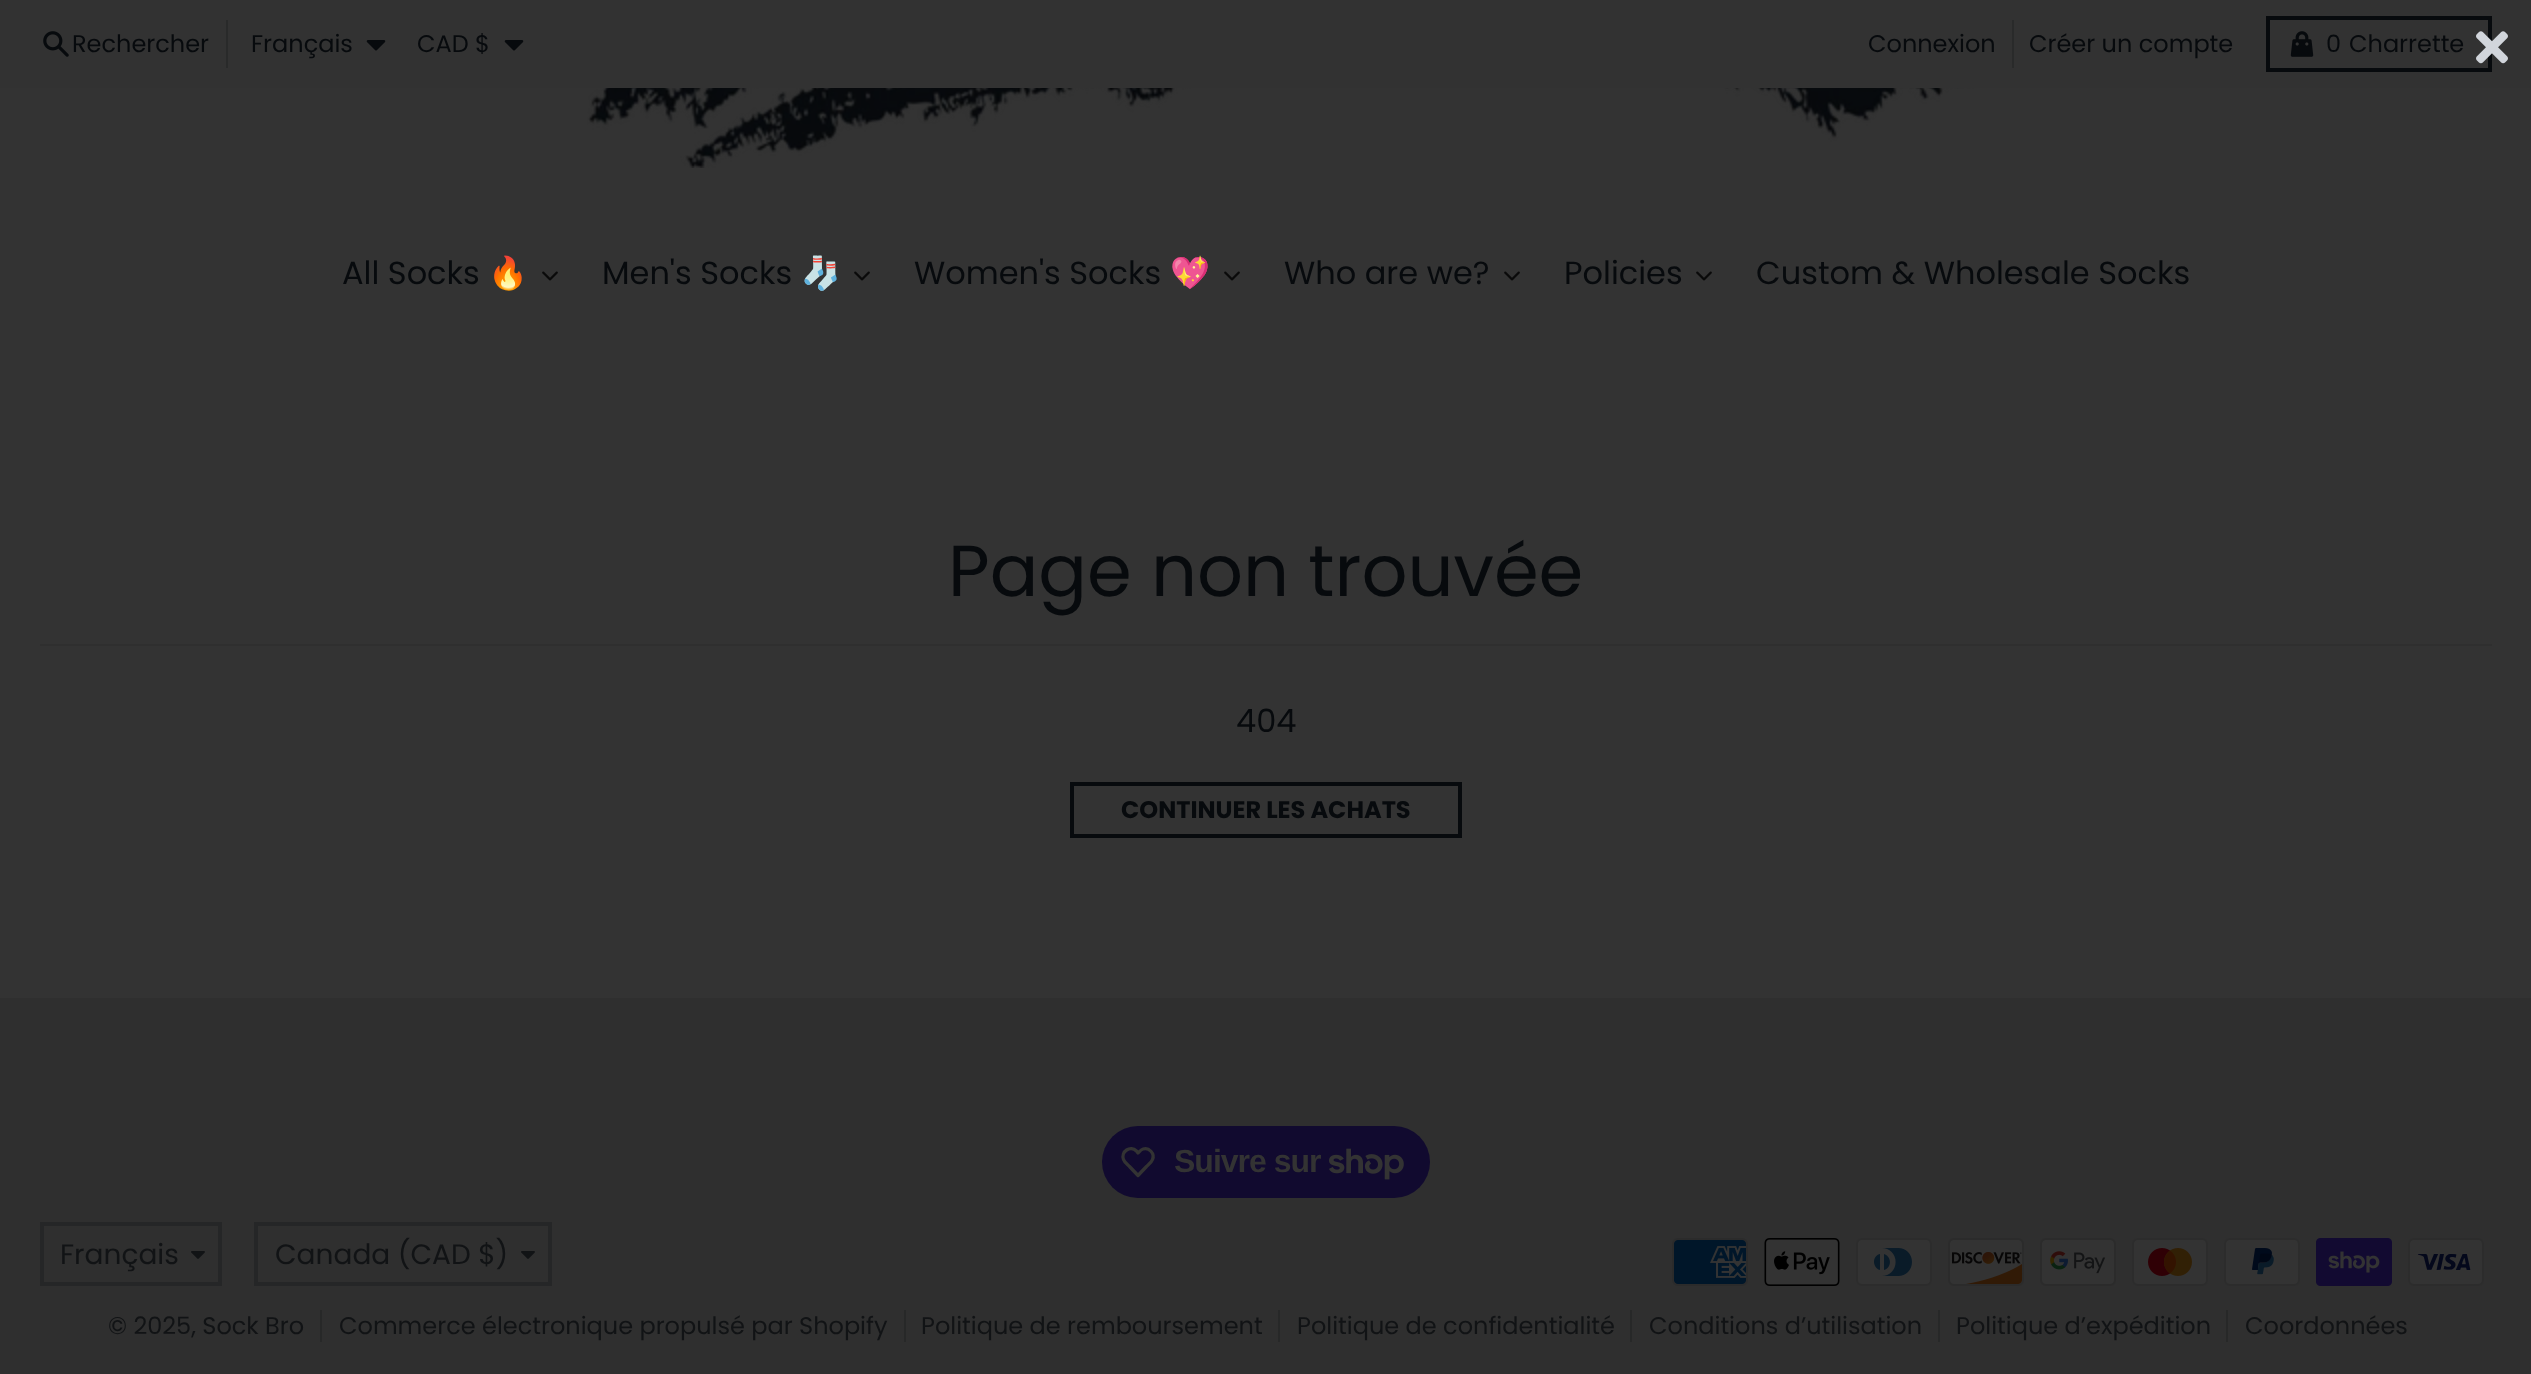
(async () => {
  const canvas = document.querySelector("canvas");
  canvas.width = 2531;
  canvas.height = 1374;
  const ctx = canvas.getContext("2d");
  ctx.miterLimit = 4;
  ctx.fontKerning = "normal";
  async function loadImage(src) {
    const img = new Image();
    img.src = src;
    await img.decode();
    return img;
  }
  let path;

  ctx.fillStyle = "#2f2f2f";
  ctx.fillRect(0, 0, 2531, 1374);
  ctx.fillStyle = "#323232";
  ctx.fillRect(0, 0, 2531, 88);
  ctx.drawImage(await loadImage("img/1.png"), 43, 31, 26, 26);
  ctx.fillStyle = "#292a2a";
  ctx.fillRect(226, 20, 2, 48);
  ctx.drawImage(await loadImage("img/2.png"), 366, 40, 20, 11);
  ctx.drawImage(await loadImage("img/2.png"), 504, 40, 20, 11);
  ctx.fillRect(2012, 20, 2, 48);
  ctx.strokeStyle = "#070a0d";
  ctx.lineWidth = 4;
  ctx.strokeRect(2268, 18, 222, 52);
  ctx.drawImage(await loadImage("img/3.png"), 2290, 31, 24, 26);
  ctx.drawImage(await loadImage("img/4.png"), 2476, 31, 32, 33);
  ctx.fillStyle = "#333333";
  ctx.fillRect(0, 88, 2531, 910);
  ctx.drawImage(await loadImage("img/5.png"), 587, 88, 1387, 80);
  ctx.drawImage(await loadImage("img/6.png"), 542, 271, 16, 10);
  ctx.drawImage(await loadImage("img/6.png"), 854, 271, 16, 10);
  ctx.drawImage(await loadImage("img/6.png"), 1224, 271, 16, 10);
  ctx.drawImage(await loadImage("img/6.png"), 1504, 271, 16, 10);
  ctx.drawImage(await loadImage("img/6.png"), 1696, 271, 16, 10);
  ctx.fillStyle = "#2f2f2f";
  ctx.fillRect(40, 644, 2452, 2);
  ctx.strokeRect(1072, 784, 388, 52);
  ctx.fillStyle = "#110a2f";
  ctx.beginPath();
  ctx.roundRect(1102, 1126, 328, 72, 36);
  ctx.fill();
  path = new Path2D("M1136.5 1151L1138 1153C1139.5 1151.5 1141 1149.5 1143 1149C1149 1147 1155 1153.5 1152.5 1159.5C1151.5 1162.5 1148.5 1164.5 1146.5 1166.5L1138 1175.5L1129.5 1166.5C1127.5 1164.5 1124.5 1162.5 1123.5 1159.5C1120.5 1151.5 1130.5 1145 1136.5 1151Z");
  ctx.strokeStyle = "#333333";
  ctx.lineWidth = 3.3;
  ctx.lineJoin = "round";
  ctx.stroke(path);
  ctx.drawImage(await loadImage("img/7.png"), 1329, 1148, 75, 32);
  ctx.strokeStyle = "#252627";
  ctx.lineWidth = 4;
  ctx.lineJoin = "miter";
  ctx.strokeRect(42, 1224, 178, 60);
  ctx.drawImage(await loadImage("img/8.png"), 191, 1251, 14, 8);
  ctx.strokeRect(256, 1224, 294, 60);
  ctx.drawImage(await loadImage("img/8.png"), 521, 1251, 14, 8);
  ctx.drawImage(await loadImage("img/9.png"), 1672, 1238, 76, 48);
  ctx.drawImage(await loadImage("img/10.png"), 1764, 1238, 76, 48);
  ctx.drawImage(await loadImage("img/11.png"), 1856, 1238, 76, 48);
  ctx.drawImage(await loadImage("img/12.png"), 1948, 1238, 76, 48);
  ctx.drawImage(await loadImage("img/13.png"), 2040, 1238, 76, 48);
  ctx.drawImage(await loadImage("img/14.png"), 2132, 1238, 76, 48);
  ctx.drawImage(await loadImage("img/15.png"), 2224, 1238, 76, 48);
  ctx.drawImage(await loadImage("img/16.png"), 2316, 1238, 76, 48);
  ctx.drawImage(await loadImage("img/17.png"), 2408, 1238, 76, 48);
  for (const [x, y, w, h, color] of [
    [320, 1310, 2, 32, "#272828"],
    [904, 1310, 2, 32, "#272828"],
    [1278, 1310, 2, 32, "#272828"],
    [1630, 1310, 2, 32, "#272828"],
    [1938, 1310, 2, 32, "#272828"],
    [2226, 1310, 2, 32, "#272828"],
  ]) {
    ctx.fillStyle = color;
    ctx.fillRect(x, y, w, h);
  }
  ctx.font = "24px Poppins";
  ctx.fillStyle = "#070a0d";
  for (const [text, x, y] of [
    ["Rechercher", 72, 52],
    ["Français", 251, 52],
    ["CAD $", 417, 52],
    ["Connexion", 1868, 52],
    ["Créer un compte", 2029, 52],
    ["0", 2326, 52],
    ["Charrette", 2349, 52],
  ]) {
    ctx.fillText(text, x, y);
  }
  ctx.font = "32px Poppins";
  ctx.fillText("All Socks", 342, 284);
  ctx.font = "32px Noto Color Emoji";
  ctx.fillText("🔥", 488, 284);
  ctx.font = "32px Poppins";
  ctx.fillText("Men's Socks", 602, 284);
  ctx.font = "32px Noto Color Emoji";
  ctx.fillText("🧦", 801, 284);
  ctx.font = "32px Poppins";
  ctx.fillText("Women's Socks", 914, 284);
  ctx.font = "32px Noto Color Emoji";
  ctx.fillText("💖", 1170, 284);
  ctx.font = "32px Poppins";
  for (const [text, x, y] of [
    ["Who are we?", 1284, 284],
    ["Policies", 1564, 284],
    ["Custom & Wholesale Socks", 1756, 284],
  ]) {
    ctx.fillText(text, x, y);
  }
  ctx.font = "72px Poppins";
  ctx.fillText("Page non trouvée", 948, 596);
  ctx.font = "32px Poppins";
  ctx.fillText("404", 1236, 732);
  ctx.font = "bold 24px Poppins";
  ctx.fillText("CONTINUER LES ACHATS", 1121, 818);
  ctx.letterSpacing = "-1px";
  ctx.font = "bold 32px Liberation Sans";
  ctx.fillStyle = "#333333";
  ctx.fillText("Suivre sur", 1174, 1172);
  ctx.letterSpacing = "0px";
  ctx.font = "28px Poppins";
  ctx.fillStyle = "#111315";
  ctx.fillText("Français", 60, 1264);
  ctx.fillText("Canada (CAD $)", 275, 1264);
  ctx.font = "24px Poppins";
  for (const [text, x, y] of [
    ["© 2025, Sock Bro", 108, 1334],
    ["Commerce électronique propulsé par Shopify", 339, 1334],
    ["Politique de remboursement", 921, 1334],
    ["Politique de confidentialité", 1297, 1334],
    ["Conditions d’utilisation", 1649, 1334],
    ["Politique d’expédition", 1956, 1334],
    ["Coordonnées", 2245, 1334],
  ]) {
    ctx.fillText(text, x, y);
  }
})();
